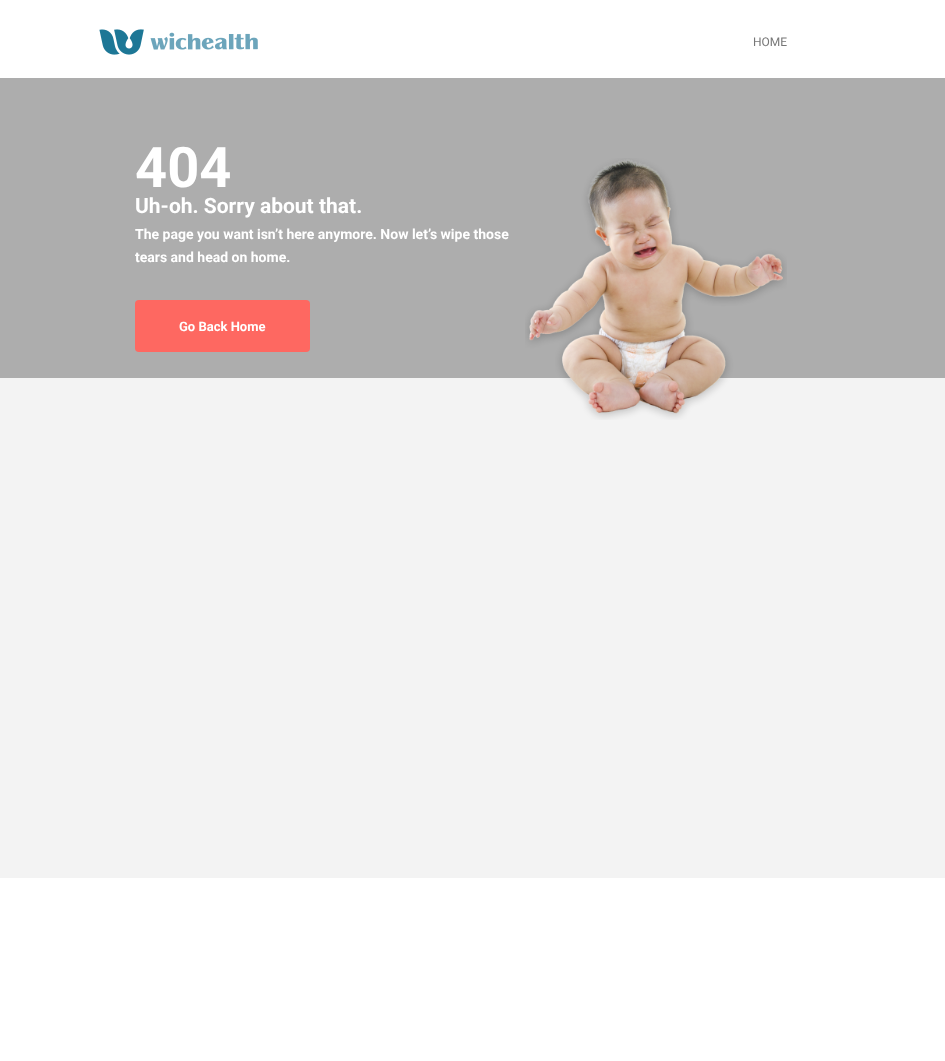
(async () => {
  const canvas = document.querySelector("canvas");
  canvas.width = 945;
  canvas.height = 1061;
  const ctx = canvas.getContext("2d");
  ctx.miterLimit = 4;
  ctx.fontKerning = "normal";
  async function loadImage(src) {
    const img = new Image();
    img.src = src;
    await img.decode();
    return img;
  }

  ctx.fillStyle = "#ffffff";
  ctx.fillRect(0, 0, 945, 1061);
  ctx.drawImage(await loadImage("img/1.png"), 99, 29, 159, 26);
  ctx.fillStyle = "#adadad";
  ctx.fillRect(0, 78, 945, 300);
  ctx.fillStyle = "#fe6861";
  ctx.beginPath();
  ctx.roundRect(135, 300, 175, 52, 4);
  ctx.fill();
  ctx.fillStyle = "#f3f3f3";
  ctx.fillRect(0, 378, 945, 500);
  ctx.drawImage(await loadImage("img/2.png"), 525, 158, 262, 262);
  ctx.font = "12px Roboto";
  ctx.fillStyle = "#777777";
  ctx.fillText("HOME", 753, 46);
  ctx.font = "bold 56px Roboto";
  ctx.fillStyle = "#ffffff";
  ctx.fillText("404", 135, 187);
  ctx.font = "bold 21px Roboto";
  ctx.fillText("Uh-oh. Sorry about that.", 135, 213);
  ctx.font = "bold 14px Roboto";
  ctx.fillText("The page you want isn’t here anymore. Now let’s wipe those", 135, 239);
  ctx.fillText("tears and head on home.", 135, 262);
  ctx.font = "bold 13px Roboto";
  ctx.fillText("Go Back Home", 179, 331);
})();
